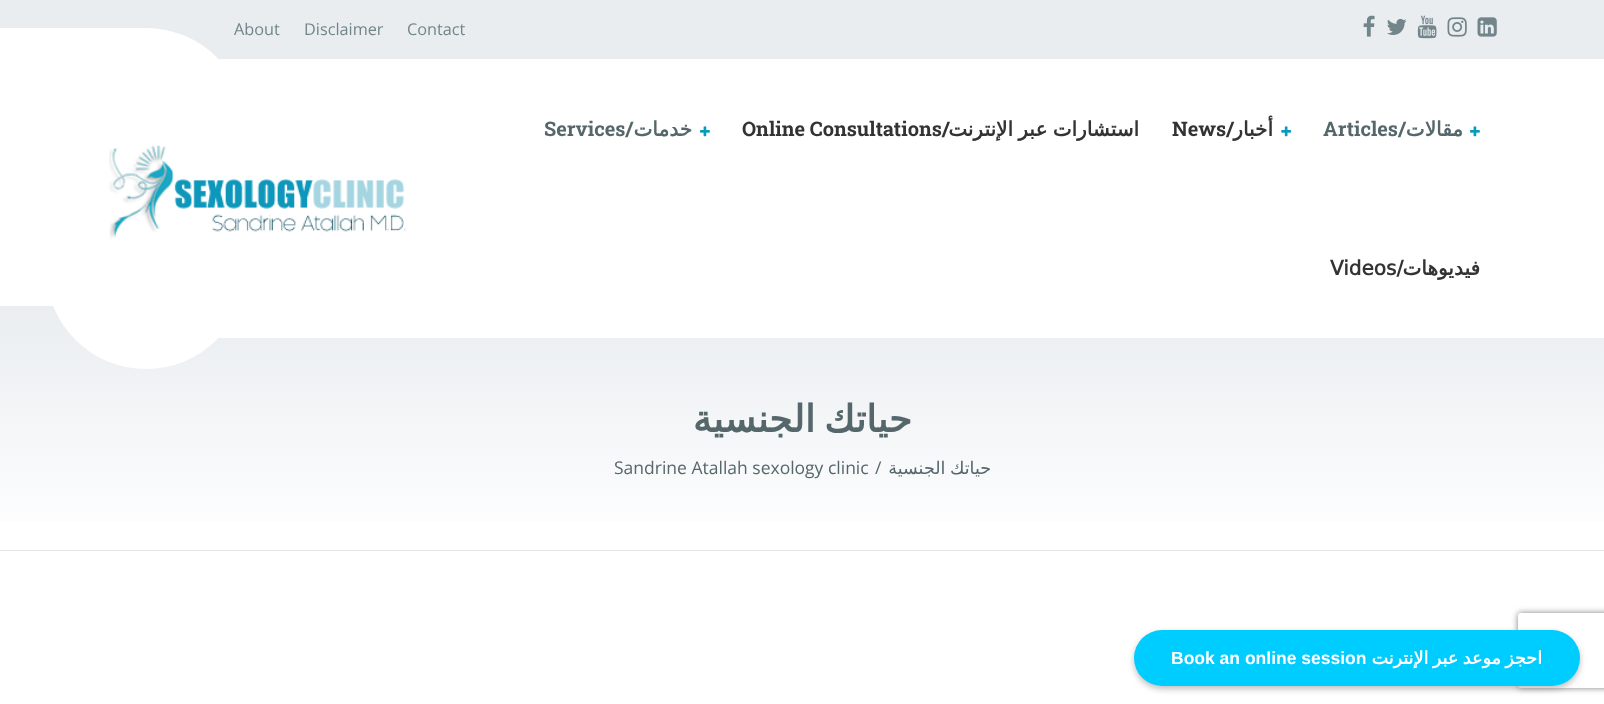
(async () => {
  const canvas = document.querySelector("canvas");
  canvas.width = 1604;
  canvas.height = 704;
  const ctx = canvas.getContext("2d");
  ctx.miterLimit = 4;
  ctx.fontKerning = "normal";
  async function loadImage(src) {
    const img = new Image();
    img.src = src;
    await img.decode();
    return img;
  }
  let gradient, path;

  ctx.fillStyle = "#ffffff";
  ctx.fillRect(0, 0, 1604, 704);
  ctx.fillStyle = "#e9edf0";
  ctx.fillRect(0, 0, 1604, 59);
  ctx.drawImage(await loadImage("img/1.png"), 1363, 15, 12, 22);
  ctx.drawImage(await loadImage("img/2.png"), 1387, 18, 20, 17);
  ctx.drawImage(await loadImage("img/3.png"), 1417, 15, 20, 24);
  ctx.drawImage(await loadImage("img/4.png"), 1447, 17, 20, 20);
  ctx.drawImage(await loadImage("img/5.png"), 1477, 17, 20, 20);
  ctx.fillStyle = "#ffffff";
  ctx.fillRect(0, 28, 145, 31);
  ctx.beginPath();
  ctx.arc(146, 128, 100, 0, Math.PI * 2);
  ctx.fill();
  ctx.drawImage(await loadImage("img/6.png"), 700, 126, 10, 11);
  ctx.drawImage(await loadImage("img/7.png"), 1281, 126, 11, 11);
  ctx.drawImage(await loadImage("img/6.png"), 1470, 126, 10, 11);
  gradient = ctx.createLinearGradient(803, 300, 803, 550);
  gradient.addColorStop(0, "#e9edf0");
  gradient.addColorStop(1, "#ffffff");
  ctx.fillStyle = gradient;
  ctx.fillRect(0, 306, 1604, 216);
  ctx.fillStyle = "#ffffff";
  ctx.fillRect(216, 306, 1388, 32);
  ctx.beginPath();
  ctx.arc(146, 269, 100, 0, Math.PI * 2);
  ctx.fill();
  ctx.drawImage(await loadImage("img/8.png"), 109, 145, 298, 94);
  ctx.fillStyle = "#e5e5e5";
  ctx.fillRect(0, 550, 1604, 1);
  ctx.fillStyle = "rgba(0, 0, 0, 0.25)";
  ctx.filter = "blur(3px)";
  ctx.beginPath();
  ctx.roundRect(1134, 633, 446, 56, 28);
  ctx.fill();
  ctx.filter = "none";
  ctx.save();
  path = new Path2D("M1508 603H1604V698H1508ZM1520.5 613H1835.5C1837 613 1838 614 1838 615.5V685.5C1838 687 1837 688 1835.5 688H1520.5C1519 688 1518 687 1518 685.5V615.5C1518 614 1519 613 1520.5 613Z");
  ctx.clip(path, "evenodd");
  ctx.fillStyle = "#808080";
  ctx.filter = "blur(3px)";
  ctx.beginPath();
  ctx.roundRect(1518, 613, 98, 75, 2.5);
  ctx.fill();
  ctx.filter = "none";
  ctx.restore();
  ctx.fillStyle = "#00cdff";
  ctx.beginPath();
  ctx.roundRect(1134, 630, 446, 56, 28);
  ctx.fill();
  ctx.font = "16.25px Open Sans";
  ctx.fillStyle = "#72858a";
  for (const [text, x, y] of [
    ["About", 234, 35],
    ["Disclaimer", 304, 35],
    ["Contact", 407, 35],
  ]) {
    ctx.fillText(text, x, y);
  }
  ctx.font = "bold 20px Roboto Slab";
  ctx.fillStyle = "#56676b";
  ctx.fillText("Services/", 544, 136);
  ctx.direction = "rtl";
  ctx.font = "bold 20px DejaVu Sans";
  ctx.fillText("خدمات", 692, 136);
  ctx.direction = "ltr";
  ctx.font = "bold 20px Roboto Slab";
  ctx.fillStyle = "#333333";
  ctx.fillText("Online Consultations/", 742, 136);
  ctx.wordSpacing = "-1px";
  ctx.direction = "rtl";
  ctx.font = "bold 20px DejaVu Sans";
  ctx.fillText("استشارات عبر الإنترنت", 1139, 136);
  ctx.wordSpacing = "0px";
  ctx.direction = "ltr";
  ctx.font = "bold 20px Roboto Slab";
  ctx.fillText("News/", 1172, 136);
  ctx.direction = "rtl";
  ctx.font = "bold 20px DejaVu Sans";
  ctx.fillText("أخبار", 1273, 136);
  ctx.direction = "ltr";
  ctx.font = "bold 20px Roboto Slab";
  ctx.fillStyle = "#56676b";
  ctx.fillText("Articles/", 1323, 136);
  ctx.direction = "rtl";
  ctx.font = "bold 20px DejaVu Sans";
  ctx.fillText("مقالات", 1463, 136);
  ctx.direction = "ltr";
  ctx.fillStyle = "#333333";
  ctx.fillText("Videos/", 1330, 275);
  ctx.direction = "rtl";
  ctx.fillText("فيديوهات", 1480, 275);
  ctx.wordSpacing = "-3px";
  ctx.font = "bold 37.5px DejaVu Sans";
  ctx.fillStyle = "#56676b";
  ctx.fillText("حياتك الجنسية", 912, 432);
  ctx.wordSpacing = "0px";
  ctx.direction = "ltr";
  ctx.font = "17.5px Open Sans";
  ctx.fillText("Sandrine Atallah sexology clinic", 614, 474);
  ctx.fillText("/", 875, 474);
  ctx.wordSpacing = "-1px";
  ctx.direction = "rtl";
  ctx.font = "17.5px DejaVu Sans";
  ctx.fillText("حياتك الجنسية", 991, 474);
  ctx.wordSpacing = "0px";
  ctx.direction = "ltr";
  ctx.font = "bold 17.5px Liberation Sans";
  ctx.fillStyle = "#ffffff";
  ctx.fillText("Book an online session", 1171, 664);
  ctx.wordSpacing = "-1px";
  ctx.direction = "rtl";
  ctx.font = "bold 17.5px DejaVu Sans";
  ctx.fillText("احجز موعد عبر الإنترنت", 1542, 664);
})();
